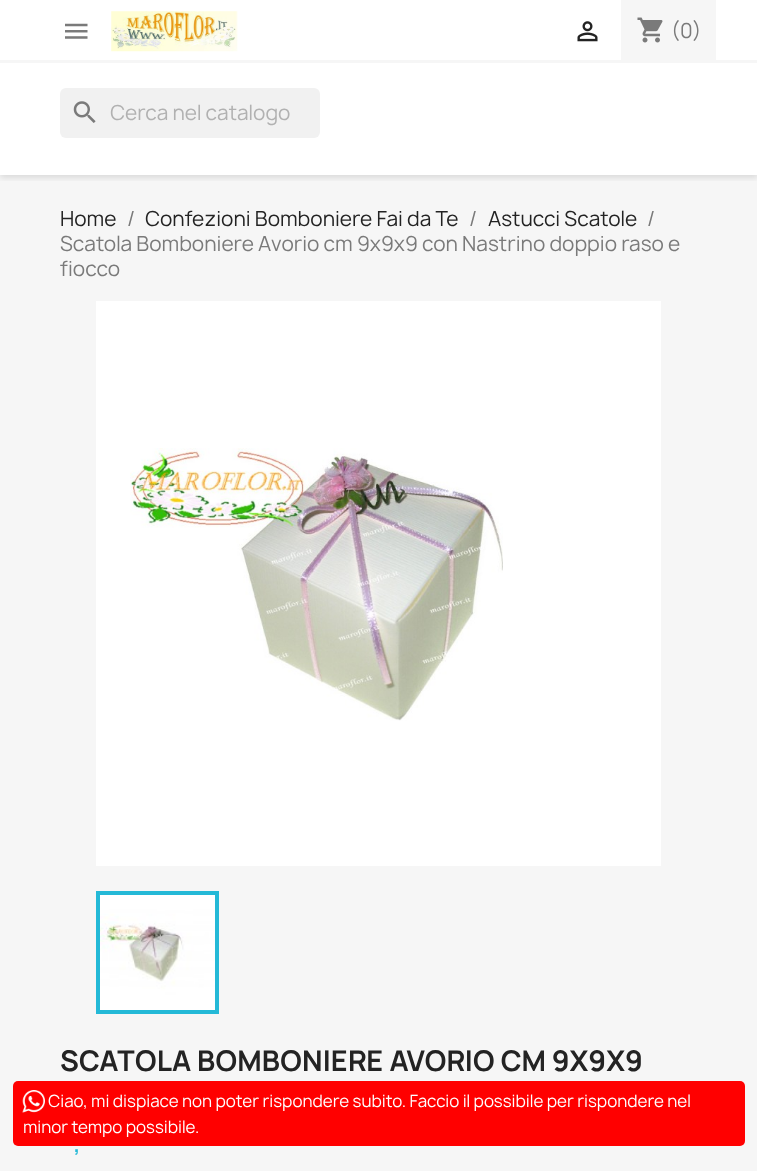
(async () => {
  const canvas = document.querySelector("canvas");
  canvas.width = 757;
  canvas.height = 1171;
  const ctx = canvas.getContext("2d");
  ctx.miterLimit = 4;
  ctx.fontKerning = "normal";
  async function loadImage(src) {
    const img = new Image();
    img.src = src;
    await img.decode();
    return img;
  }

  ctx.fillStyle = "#ffffff";
  ctx.fillRect(0, 0, 757, 1171);
  ctx.fillStyle = "#f6f6f6";
  ctx.fillRect(0, 175, 757, 996);
  ctx.save();
  ctx.beginPath();
  ctx.rect(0, 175, 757, 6);
  ctx.clip();
  ctx.fillStyle = "rgba(0, 0, 0, 0.11)";
  ctx.filter = "blur(3px)";
  ctx.beginPath();
  ctx.rect(0, 3, 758, 175);
  ctx.fill();
  ctx.filter = "none";
  ctx.restore();
  ctx.fillRect(0, 60, 757, 3);
  ctx.drawImage(await loadImage("img/1.png"), 65, 23, 23, 16);
  ctx.drawImage(await loadImage("img/2.png"), 111, 11, 127, 41);
  ctx.drawImage(await loadImage("img/3.png"), 577, 21, 21, 21);
  ctx.fillRect(621, 0, 95, 60);
  ctx.drawImage(await loadImage("img/4.png"), 637, 17, 26, 26);
  ctx.fillStyle = "#f1f1f1";
  ctx.beginPath();
  ctx.roundRect(60, 88, 260, 50, 6);
  ctx.fill();
  ctx.drawImage(await loadImage("img/5.png"), 73, 101, 23, 22);
  ctx.fillStyle = "#ffffff";
  ctx.fillRect(96, 301, 565, 565);
  ctx.drawImage(await loadImage("img/6.png"), 130, 448, 373, 273);
  ctx.strokeStyle = "#24b9d7";
  ctx.lineWidth = 4;
  ctx.strokeRect(98, 893, 119, 119);
  ctx.drawImage(await loadImage("img/7.png"), 100, 895, 115, 115);
  ctx.fillStyle = "#ff0000";
  ctx.beginPath();
  ctx.roundRect(13, 1081, 732, 65, 5);
  ctx.fill();
  ctx.drawImage(await loadImage("img/8.png"), 22, 1090, 23, 23);
  ctx.font = "20px Manrope";
  ctx.fillStyle = "#7a7a7a";
  ctx.fillText("(0)", 671, 38);
  ctx.fillStyle = "#b1b1b1";
  ctx.fillText("Cerca nel catalogo", 110, 120);
  ctx.fillStyle = "#232323";
  ctx.fillText("Home", 60, 226);
  ctx.fillStyle = "#7a7a7a";
  ctx.fillText("/", 127, 226);
  ctx.fillStyle = "#232323";
  ctx.fillText("Confezioni Bomboniere Fai da Te", 145, 226);
  ctx.fillStyle = "#7a7a7a";
  ctx.fillText("/", 469, 226);
  ctx.fillStyle = "#232323";
  ctx.fillText("Astucci Scatole", 488, 226);
  ctx.fillStyle = "#7a7a7a";
  for (const [text, x, y] of [
    ["/", 647, 226],
    ["Scatola Bomboniere Avorio cm 9x9x9 con Nastrino doppio raso e", 60, 251],
    ["fiocco", 60, 276],
  ]) {
    ctx.fillText(text, x, y);
  }
  ctx.font = "bold 27.5px Manrope";
  ctx.fillStyle = "#232323";
  ctx.fillText("SCATOLA BOMBONIERE AVORIO CM 9X9X9", 60, 1071);
  ctx.font = "bold 20px Manrope";
  ctx.fillStyle = "#24b9d7";
  ctx.fillText(",", 74, 1152);
  ctx.font = "16.25px Manrope";
  ctx.fillStyle = "#ffffff";
  ctx.fillText("Ciao, mi dispiace non poter rispondere subito. Faccio il possibile per rispondere nel", 48, 1107);
  ctx.fillText("minor tempo possibile.", 23, 1133);
})();
